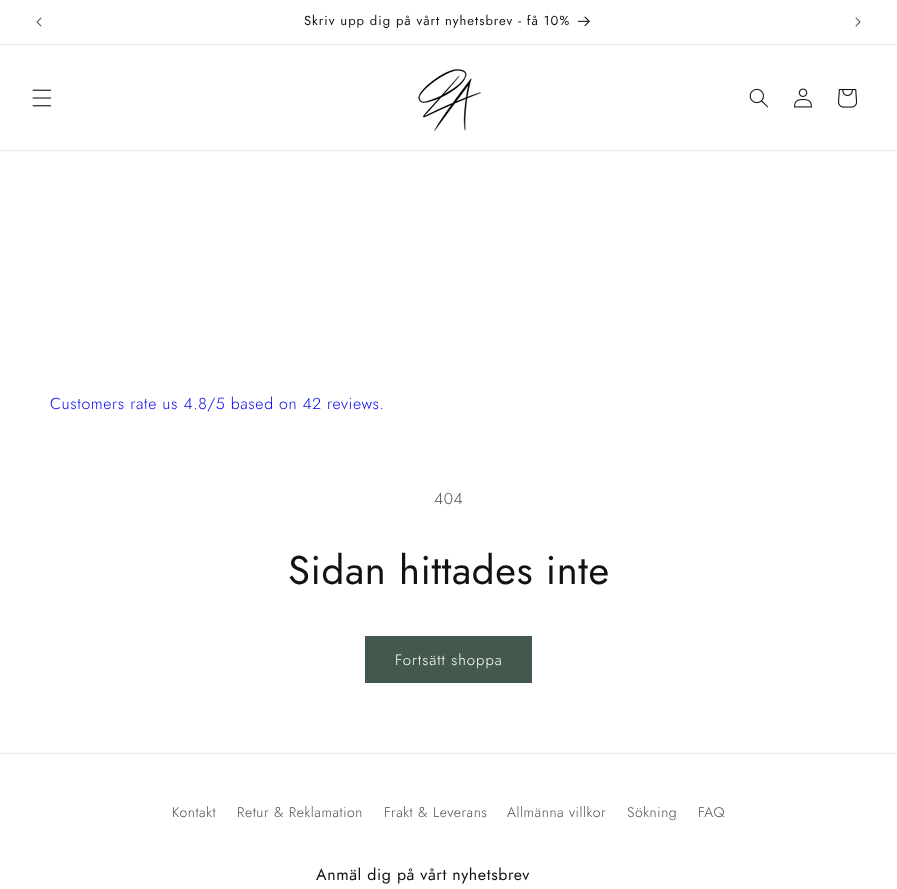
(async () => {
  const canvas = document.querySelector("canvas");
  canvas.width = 897;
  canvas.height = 889;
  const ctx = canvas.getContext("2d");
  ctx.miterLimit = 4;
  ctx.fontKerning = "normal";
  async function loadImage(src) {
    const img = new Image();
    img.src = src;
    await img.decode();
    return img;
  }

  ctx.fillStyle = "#ffffff";
  ctx.fillRect(0, 0, 897, 889);
  ctx.fillStyle = "#ececec";
  ctx.fillRect(0, 44, 897, 1);
  ctx.drawImage(await loadImage("img/1.png"), 36, 17, 6, 10);
  ctx.drawImage(await loadImage("img/2.png"), 578, 16, 12, 10);
  ctx.drawImage(await loadImage("img/3.png"), 855, 17, 6, 10);
  ctx.fillRect(0, 150, 897, 1);
  ctx.drawImage(await loadImage("img/4.png"), 32, 89, 20, 18);
  ctx.drawImage(await loadImage("img/5.png"), 418, 69, 64, 63);
  ctx.drawImage(await loadImage("img/6.png"), 749, 88, 19, 20);
  ctx.drawImage(await loadImage("img/7.png"), 794, 88, 18, 20);
  ctx.drawImage(await loadImage("img/8.png"), 838, 89, 20, 19);
  ctx.fillStyle = "#44594d";
  ctx.fillRect(365, 636, 167, 47);
  ctx.fillStyle = "#ececec";
  ctx.fillRect(0, 753, 897, 1);
  ctx.letterSpacing = "1px";
  ctx.font = "13px Jost";
  ctx.fillStyle = "#121212";
  ctx.fillText("Skriv upp dig på vårt nyhetsbrev - få 10%", 304, 25);
  ctx.letterSpacing = "0.6px";
  ctx.font = "300 16px Jost";
  ctx.fillStyle = "#0000ee";
  ctx.fillText("Customers rate us 4.8/5 based on 42 reviews.", 50, 409);
  ctx.fillStyle = "#4d4d4d";
  ctx.fillText("404", 434, 504);
  ctx.font = "40px Jost";
  ctx.fillStyle = "#121212";
  ctx.fillText("Sidan hittades inte", 288, 584);
  ctx.letterSpacing = "1px";
  ctx.font = "300 15px Jost";
  ctx.fillStyle = "#ffffff";
  ctx.fillText("Fortsätt shoppa", 395, 665);
  ctx.letterSpacing = "0.6px";
  ctx.font = "300 14px Jost";
  ctx.fillStyle = "#4d4d4d";
  for (const [text, x, y] of [
    ["Kontakt", 172, 817],
    ["Retur & Reklamation", 237, 817],
    ["Frakt & Leverans", 384, 817],
    ["Allmänna villkor", 507, 817],
    ["Sökning", 627, 817],
    ["FAQ", 698, 817],
  ]) {
    ctx.fillText(text, x, y);
  }
  ctx.font = "16px Jost";
  ctx.fillStyle = "#121212";
  ctx.fillText("Anmäl dig på vårt nyhetsbrev", 316, 880);
})();
